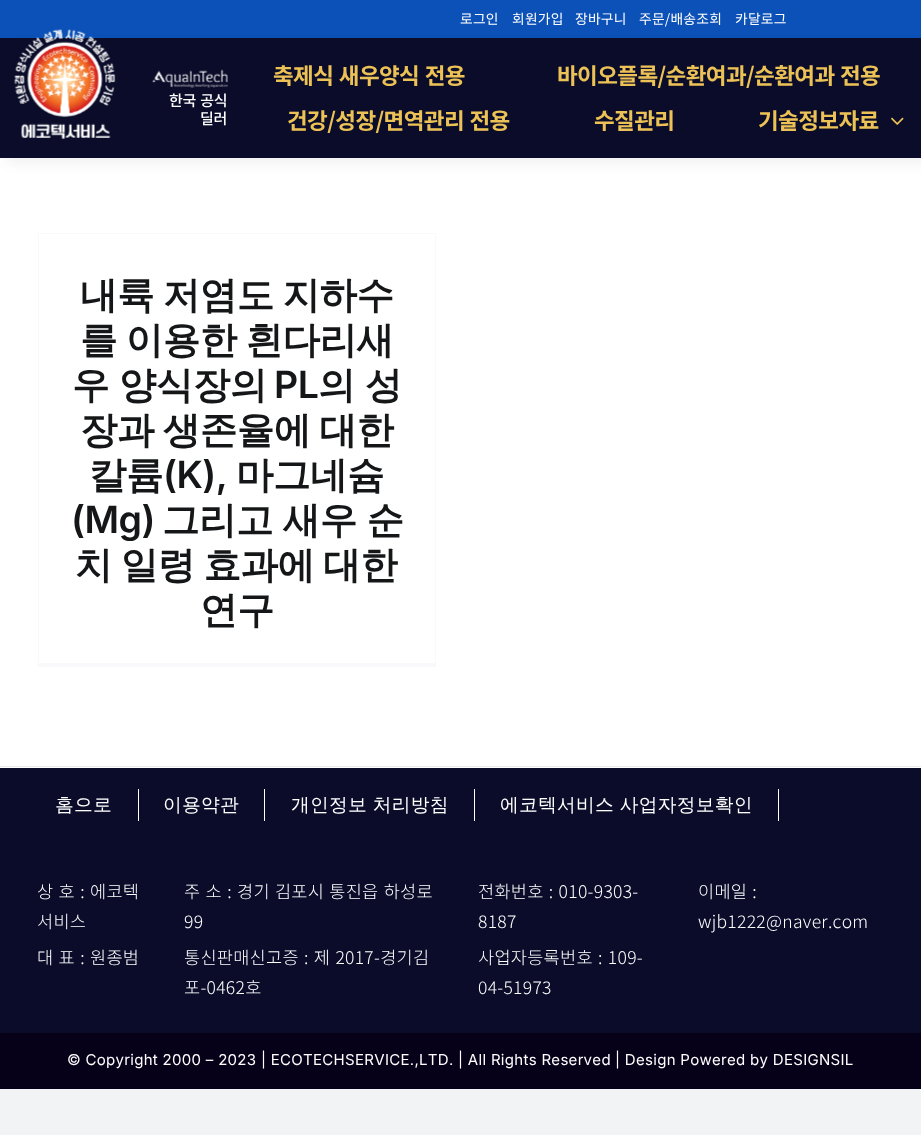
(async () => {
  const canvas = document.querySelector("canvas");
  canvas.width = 921;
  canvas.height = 1135;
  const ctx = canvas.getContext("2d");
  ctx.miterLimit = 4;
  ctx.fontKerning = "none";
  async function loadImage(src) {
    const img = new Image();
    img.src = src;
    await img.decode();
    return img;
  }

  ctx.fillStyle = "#f2f3f5";
  ctx.fillRect(0, 0, 921, 1135);
  ctx.fillStyle = "#ffffff";
  ctx.fillRect(0, 158, 921, 610);
  ctx.fillStyle = "#0c51b7";
  ctx.fillRect(0, 0, 921, 38);
  ctx.fillStyle = "rgba(0, 0, 0, 0.05)";
  ctx.filter = "blur(6px)";
  ctx.beginPath();
  ctx.rect(6, 44, 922, 120);
  ctx.fill();
  ctx.filter = "none";
  ctx.fillStyle = "#0a0c29";
  ctx.fillRect(0, 38, 921, 120);
  ctx.drawImage(await loadImage("img/1.png"), 14, 29, 102, 110);
  ctx.drawImage(await loadImage("img/2.png"), 152, 69, 76, 19);
  ctx.drawImage(await loadImage("img/3.png"), 891, 117, 13, 8);
  for (const [x, y, w, h, color] of [
    [38, 233, 398, 1, "#f9f9fb"],
    [435, 233, 1, 433, "#f9f9fb"],
    [38, 663, 398, 4, "#f9f9fb"],
    [38, 233, 1, 433, "#f9f9fb"],
    [0, 768, 921, 265, "#0a0c29"],
    [0, 766, 921, 1, "#eaeaea"],
    [138, 789, 1, 32, "#ffffff"],
    [264, 789, 1, 32, "#ffffff"],
    [474, 789, 1, 32, "#ffffff"],
    [778, 789, 1, 32, "#ffffff"],
    [0, 1033, 921, 56, "#070019"],
  ]) {
    ctx.fillStyle = color;
    ctx.fillRect(x, y, w, h);
  }
  ctx.letterSpacing = "0.25px";
  ctx.font = "13.75px Noto Sans KR";
  ctx.fillStyle = "#ffffff";
  for (const [text, x, y] of [
    ["로그인", 460, 24],
    ["회원가입", 512, 24],
    ["장바구니", 575, 24],
    ["주문/배송조회", 639, 24],
    ["카달로그", 735, 24],
  ]) {
    ctx.fillText(text, x, y);
  }
  ctx.letterSpacing = "-0.25px";
  ctx.wordSpacing = "1px";
  ctx.font = "500 15px Noto Sans KR";
  ctx.fillText("한국 공식", 169, 106);
  ctx.wordSpacing = "0px";
  ctx.fillText("딜러", 200, 124);
  ctx.letterSpacing = "-0.6px";
  ctx.wordSpacing = "1px";
  ctx.font = "bold 22.5px Noto Sans KR";
  ctx.fillStyle = "#ecc256";
  for (const [text, x, y] of [
    ["축제식 새우양식 전용", 273, 84],
    ["바이오플록/순환여과/순환여과 전용", 557, 84],
    ["건강/성장/면역관리 전용", 287, 129],
  ]) {
    ctx.fillText(text, x, y);
  }
  ctx.wordSpacing = "0px";
  ctx.fillText("수질관리", 594, 129);
  ctx.fillText("기술정보자료", 758, 129);
  ctx.letterSpacing = "-0.5px";
  ctx.wordSpacing = "-2px";
  ctx.font = "bold 37.5px WenQuanYi Zen Hei";
  ctx.fillStyle = "#141617";
  ctx.fillText("내륙 저염도 지하수", 80, 308);
  ctx.fillText("를 이용한 흰다리새", 80, 353);
  ctx.wordSpacing = "-1px";
  ctx.fillText("우 양식장의", 72, 398);
  ctx.wordSpacing = "0px";
  ctx.font = "600 37.5px Inter";
  ctx.fillText("PL", 274, 398);
  ctx.wordSpacing = "-1px";
  ctx.font = "bold 37.5px WenQuanYi Zen Hei";
  ctx.fillText("의 성", 318, 398);
  ctx.wordSpacing = "-2px";
  ctx.fillText("장과 생존율에 대한", 80, 443);
  ctx.wordSpacing = "0px";
  ctx.fillText("칼륨", 89, 488);
  ctx.font = "600 37.5px Inter";
  ctx.fillText("(K),", 163, 488);
  ctx.font = "bold 37.5px WenQuanYi Zen Hei";
  ctx.fillText("마그네슘", 236, 488);
  ctx.font = "600 37.5px Inter";
  ctx.fillText("(Mg)", 71, 533);
  ctx.wordSpacing = "-1px";
  ctx.font = "bold 37.5px WenQuanYi Zen Hei";
  ctx.fillText("그리고 새우 순", 162, 533);
  ctx.wordSpacing = "-2px";
  ctx.fillText("치 일령 효과에 대한", 75, 578);
  ctx.wordSpacing = "0px";
  ctx.fillText("연구", 200, 623);
  ctx.letterSpacing = "0.25px";
  ctx.font = "500 18.75px WenQuanYi Zen Hei";
  ctx.fillStyle = "#ffffff";
  for (const [text, x, y] of [
    ["홈으로", 55, 811],
    ["이용약관", 163, 811],
    ["개인정보 처리방침", 291, 811],
    ["에코텍서비스 사업자정보확인", 500, 811],
  ]) {
    ctx.fillText(text, x, y);
  }
  ctx.letterSpacing = "0.3px";
  ctx.wordSpacing = "1px";
  ctx.font = "300 17.5px Noto Sans KR";
  ctx.fillText("상 호 : 에코텍", 37, 898);
  ctx.wordSpacing = "0px";
  ctx.fillText("서비스", 37, 928);
  ctx.wordSpacing = "1px";
  ctx.fillText("대 표 : 원종범", 37, 964);
  ctx.fillText("주 소 : 경기 김포시 통진읍 하성로", 184, 898);
  ctx.wordSpacing = "0px";
  ctx.fillText("99", 184, 928);
  ctx.wordSpacing = "1px";
  ctx.fillText("통신판매신고증 : 제 2017-경기김", 184, 964);
  ctx.wordSpacing = "0px";
  ctx.fillText("포-0462호", 184, 994);
  ctx.wordSpacing = "1px";
  ctx.fillText("전화번호 : 010-9303-", 478, 898);
  ctx.wordSpacing = "0px";
  ctx.fillText("8187", 478, 928);
  ctx.wordSpacing = "1px";
  ctx.fillText("사업자등록번호 : 109-", 478, 964);
  ctx.wordSpacing = "0px";
  ctx.fillText("04-51973", 478, 994);
  ctx.wordSpacing = "1px";
  ctx.fillText("이메일 :", 698, 898);
  ctx.wordSpacing = "0px";
  ctx.fillText("wjb1222@naver.com", 698, 928);
  ctx.font = "15px Inter";
  ctx.fillText("© Copyright 2000 – 2023 | ECOTECHSERVICE.,LTD. | All Rights Reserved", 67, 1065);
  ctx.fillText("| Design Powered by DESIGNSIL", 615, 1065);
})();
